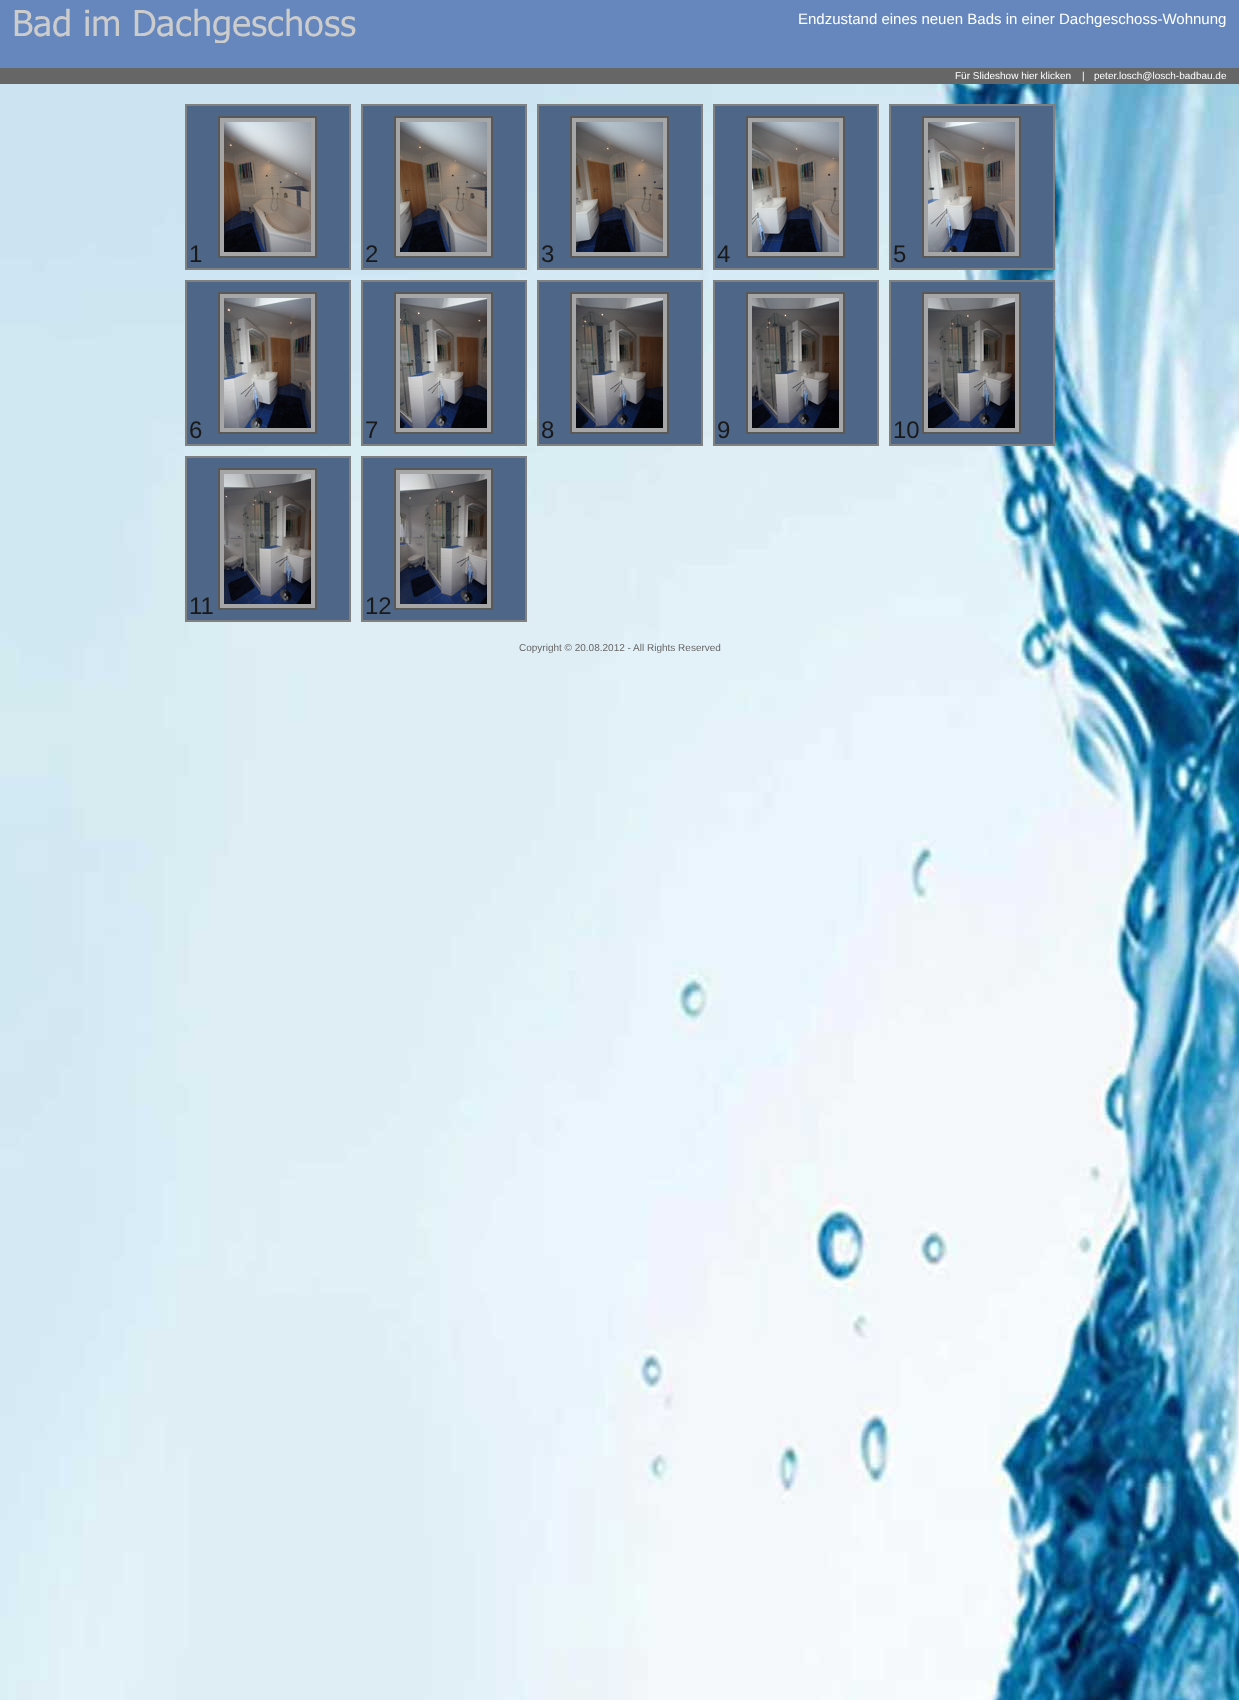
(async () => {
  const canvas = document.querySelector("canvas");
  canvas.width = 1239;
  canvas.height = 1700;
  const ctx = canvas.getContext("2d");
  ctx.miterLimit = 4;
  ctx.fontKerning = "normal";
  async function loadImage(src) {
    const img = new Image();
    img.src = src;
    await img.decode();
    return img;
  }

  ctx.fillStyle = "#ffffff";
  ctx.fillRect(0, 0, 1239, 1700);
  ctx.drawImage(await loadImage("img/1.png"), 0, 84, 1239, 1616);
  ctx.fillStyle = "#6587bd";
  ctx.fillRect(0, 0, 1239, 68);
  ctx.drawImage(await loadImage("img/2.png"), 14, 8, 342, 35);
  ctx.fillStyle = "#666666";
  ctx.fillRect(0, 68, 1239, 16);
  ctx.fillStyle = "#4e6789";
  ctx.beginPath();
  ctx.rect(186, 105, 164, 164);
  ctx.fill();
  ctx.strokeStyle = "#808080";
  ctx.lineWidth = 2;
  ctx.stroke();
  ctx.fillStyle = "#a6a6a6";
  ctx.beginPath();
  ctx.rect(219, 117, 97, 140);
  ctx.fill();
  ctx.strokeStyle = "#595959";
  ctx.stroke();
  ctx.drawImage(await loadImage("img/3.png"), 224, 122, 87, 130);
  ctx.fillStyle = "#4e6789";
  ctx.beginPath();
  ctx.rect(362, 105, 164, 164);
  ctx.fill();
  ctx.strokeStyle = "#808080";
  ctx.stroke();
  ctx.fillStyle = "#a6a6a6";
  ctx.beginPath();
  ctx.rect(395, 117, 97, 140);
  ctx.fill();
  ctx.strokeStyle = "#595959";
  ctx.stroke();
  ctx.drawImage(await loadImage("img/4.png"), 400, 122, 87, 130);
  ctx.fillStyle = "#4e6789";
  ctx.beginPath();
  ctx.rect(538, 105, 164, 164);
  ctx.fill();
  ctx.strokeStyle = "#808080";
  ctx.stroke();
  ctx.fillStyle = "#a6a6a6";
  ctx.beginPath();
  ctx.rect(571, 117, 97, 140);
  ctx.fill();
  ctx.strokeStyle = "#595959";
  ctx.stroke();
  ctx.drawImage(await loadImage("img/5.png"), 576, 122, 87, 130);
  ctx.fillStyle = "#4e6789";
  ctx.beginPath();
  ctx.rect(714, 105, 164, 164);
  ctx.fill();
  ctx.strokeStyle = "#808080";
  ctx.stroke();
  ctx.fillStyle = "#a6a6a6";
  ctx.beginPath();
  ctx.rect(747, 117, 97, 140);
  ctx.fill();
  ctx.strokeStyle = "#595959";
  ctx.stroke();
  ctx.drawImage(await loadImage("img/6.png"), 752, 122, 87, 130);
  ctx.fillStyle = "#4e6789";
  ctx.beginPath();
  ctx.rect(890, 105, 164, 164);
  ctx.fill();
  ctx.strokeStyle = "#808080";
  ctx.stroke();
  ctx.fillStyle = "#a6a6a6";
  ctx.beginPath();
  ctx.rect(923, 117, 97, 140);
  ctx.fill();
  ctx.strokeStyle = "#595959";
  ctx.stroke();
  ctx.drawImage(await loadImage("img/7.png"), 928, 122, 87, 130);
  ctx.fillStyle = "#4e6789";
  ctx.beginPath();
  ctx.rect(186, 281, 164, 164);
  ctx.fill();
  ctx.strokeStyle = "#808080";
  ctx.stroke();
  ctx.fillStyle = "#a6a6a6";
  ctx.beginPath();
  ctx.rect(219, 293, 97, 140);
  ctx.fill();
  ctx.strokeStyle = "#595959";
  ctx.stroke();
  ctx.drawImage(await loadImage("img/8.png"), 224, 298, 87, 130);
  ctx.fillStyle = "#4e6789";
  ctx.beginPath();
  ctx.rect(362, 281, 164, 164);
  ctx.fill();
  ctx.strokeStyle = "#808080";
  ctx.stroke();
  ctx.fillStyle = "#a6a6a6";
  ctx.beginPath();
  ctx.rect(395, 293, 97, 140);
  ctx.fill();
  ctx.strokeStyle = "#595959";
  ctx.stroke();
  ctx.drawImage(await loadImage("img/9.png"), 400, 298, 87, 130);
  ctx.fillStyle = "#4e6789";
  ctx.beginPath();
  ctx.rect(538, 281, 164, 164);
  ctx.fill();
  ctx.strokeStyle = "#808080";
  ctx.stroke();
  ctx.fillStyle = "#a6a6a6";
  ctx.beginPath();
  ctx.rect(571, 293, 97, 140);
  ctx.fill();
  ctx.strokeStyle = "#595959";
  ctx.stroke();
  ctx.drawImage(await loadImage("img/10.png"), 576, 298, 87, 130);
  ctx.fillStyle = "#4e6789";
  ctx.beginPath();
  ctx.rect(714, 281, 164, 164);
  ctx.fill();
  ctx.strokeStyle = "#808080";
  ctx.stroke();
  ctx.fillStyle = "#a6a6a6";
  ctx.beginPath();
  ctx.rect(747, 293, 97, 140);
  ctx.fill();
  ctx.strokeStyle = "#595959";
  ctx.stroke();
  ctx.drawImage(await loadImage("img/11.png"), 752, 298, 87, 130);
  ctx.fillStyle = "#4e6789";
  ctx.beginPath();
  ctx.rect(890, 281, 164, 164);
  ctx.fill();
  ctx.strokeStyle = "#808080";
  ctx.stroke();
  ctx.fillStyle = "#a6a6a6";
  ctx.beginPath();
  ctx.rect(923, 293, 97, 140);
  ctx.fill();
  ctx.strokeStyle = "#595959";
  ctx.stroke();
  ctx.drawImage(await loadImage("img/12.png"), 928, 298, 87, 130);
  ctx.fillStyle = "#4e6789";
  ctx.beginPath();
  ctx.rect(186, 457, 164, 164);
  ctx.fill();
  ctx.strokeStyle = "#808080";
  ctx.stroke();
  ctx.fillStyle = "#a6a6a6";
  ctx.beginPath();
  ctx.rect(219, 469, 97, 140);
  ctx.fill();
  ctx.strokeStyle = "#595959";
  ctx.stroke();
  ctx.drawImage(await loadImage("img/13.png"), 224, 474, 87, 130);
  ctx.fillStyle = "#4e6789";
  ctx.beginPath();
  ctx.rect(362, 457, 164, 164);
  ctx.fill();
  ctx.strokeStyle = "#808080";
  ctx.stroke();
  ctx.fillStyle = "#a6a6a6";
  ctx.beginPath();
  ctx.rect(395, 469, 97, 140);
  ctx.fill();
  ctx.strokeStyle = "#595959";
  ctx.stroke();
  ctx.drawImage(await loadImage("img/14.png"), 400, 474, 87, 130);
  ctx.font = "15px Liberation Sans";
  ctx.fillStyle = "#ffffff";
  ctx.fillText("Endzustand eines neuen Bads in einer Dachgeschoss-Wohnung", 798, 24);
  ctx.font = "10px Liberation Sans";
  for (const [text, x, y] of [
    ["Für Slideshow hier klicken", 955, 79],
    ["|", 1082, 79],
    ["peter.losch@losch-badbau.de", 1094, 79],
  ]) {
    ctx.fillText(text, x, y);
  }
  ctx.font = "24px Liberation Sans";
  ctx.fillStyle = "#191919";
  for (const [text, x, y] of [
    ["1", 189, 262],
    ["2", 365, 262],
    ["3", 541, 262],
    ["4", 717, 262],
    ["5", 893, 262],
    ["6", 189, 438],
    ["7", 365, 438],
    ["8", 541, 438],
    ["9", 717, 438],
    ["10", 893, 438],
    ["11", 189, 614],
    ["12", 365, 614],
  ]) {
    ctx.fillText(text, x, y);
  }
  ctx.font = "10px Liberation Sans";
  ctx.fillStyle = "#666666";
  ctx.fillText("Copyright © 20.08.2012 - All Rights Reserved", 519, 651);
})();
